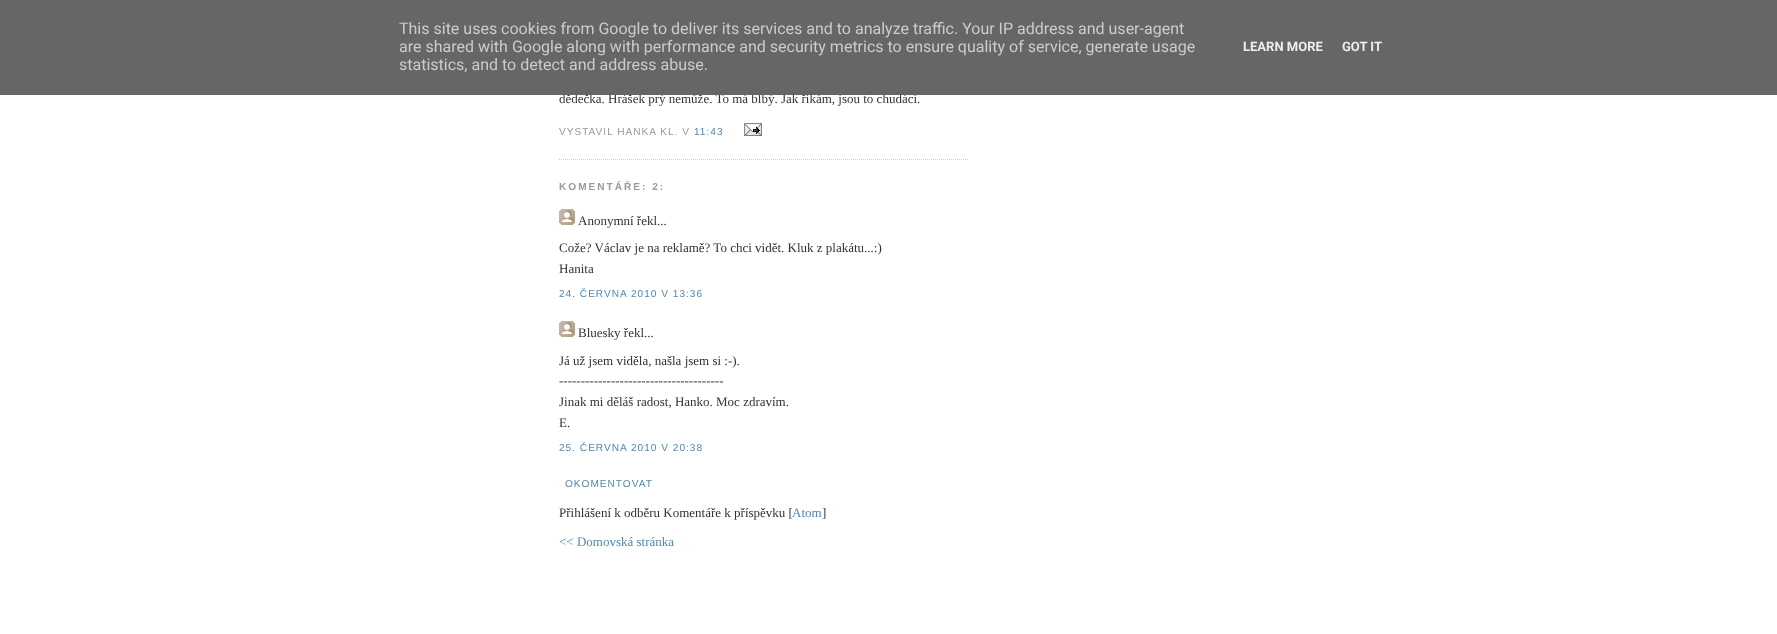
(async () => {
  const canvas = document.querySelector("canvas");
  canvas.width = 1777;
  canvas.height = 634;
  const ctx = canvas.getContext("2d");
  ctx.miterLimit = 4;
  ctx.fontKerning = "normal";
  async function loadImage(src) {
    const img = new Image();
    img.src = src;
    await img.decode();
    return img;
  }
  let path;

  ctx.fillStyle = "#ffffff";
  ctx.fillRect(0, 0, 1777, 634);
  path = new Path2D("M559 159.5H969");
  ctx.strokeStyle = "#cccccc";
  ctx.setLineDash([1, 1]);
  ctx.stroke(path);
  ctx.drawImage(await loadImage("img/1.png"), 744, 123, 18, 13);
  ctx.drawImage(await loadImage("img/2.png"), 559, 209, 16, 16);
  ctx.drawImage(await loadImage("img/2.png"), 559, 321, 16, 16);
  ctx.font = "13px Liberation Serif";
  ctx.fillStyle = "#333333";
  ctx.fillText("dědečka. Hrášek prý nemůže. To má blbý. Jak říkám, jsou to chudáci.", 559, 103);
  ctx.fillStyle = "#666666";
  ctx.fillRect(0, 0, 1777, 95);
  ctx.font = "bold 13px Roboto";
  ctx.fillStyle = "#eeeeee";
  ctx.fillText("GOT IT", 1342, 51);
  ctx.fillText("LEARN MORE", 1243, 51);
  ctx.font = "16px Roboto";
  ctx.fillStyle = "#cccccc";
  for (const [text, x, y] of [
    ["statistics, and to detect and address abuse.", 399, 70],
    ["are shared with Google along with performance and security metrics to ensure quality of service, generate usage", 399, 52],
    ["This site uses cookies from Google to deliver its services and to analyze traffic. Your IP address and user-agent", 399, 34],
  ]) {
    ctx.fillText(text, x, y);
  }
  ctx.letterSpacing = "1px";
  ctx.font = "10.1px Liberation Sans";
  ctx.fillStyle = "#999999";
  ctx.fillText("VYSTAVIL HANKA KL. V", 559, 135);
  ctx.fillStyle = "#5588aa";
  ctx.fillText("11:43", 694, 135);
  ctx.letterSpacing = "2px";
  ctx.font = "bold 10.1px Liberation Sans";
  ctx.fillStyle = "#999999";
  ctx.fillText("KOMENTÁŘE: 2:", 559, 190);
  ctx.letterSpacing = "0px";
  ctx.font = "13px Liberation Serif";
  ctx.fillStyle = "#333333";
  for (const [text, x, y] of [
    ["Anonymní řekl...", 578, 225],
    ["Cože? Václav je na reklamě? To chci vidět. Kluk z plakátu...:)", 559, 252],
    ["Hanita", 559, 273],
  ]) {
    ctx.fillText(text, x, y);
  }
  ctx.letterSpacing = "1px";
  ctx.font = "10.1px Liberation Sans";
  ctx.fillStyle = "#5588aa";
  ctx.fillText("24. ČERVNA 2010 V 13:36", 559, 297);
  ctx.letterSpacing = "0px";
  ctx.font = "13px Liberation Serif";
  ctx.fillStyle = "#333333";
  for (const [text, x, y] of [
    ["Bluesky řekl...", 578, 337],
    ["Já už jsem viděla, našla jsem si :-).", 559, 365],
    ["--------------------------------------", 559, 385],
    ["Jinak mi děláš radost, Hanko. Moc zdravím.", 559, 406],
    ["E.", 559, 427],
  ]) {
    ctx.fillText(text, x, y);
  }
  ctx.letterSpacing = "1px";
  ctx.font = "10.1px Liberation Sans";
  ctx.fillStyle = "#5588aa";
  ctx.fillText("25. ČERVNA 2010 V 20:38", 559, 451);
  ctx.fillText("OKOMENTOVAT", 565, 487);
  ctx.letterSpacing = "0px";
  ctx.font = "13px Liberation Serif";
  ctx.fillStyle = "#333333";
  ctx.fillText("Přihlášení k odběru Komentáře k příspěvku [", 559, 517);
  ctx.fillStyle = "#5588aa";
  ctx.fillText("Atom", 792, 517);
  ctx.fillStyle = "#333333";
  ctx.fillText("]", 822, 517);
  ctx.fillStyle = "#5588aa";
  ctx.fillText("<< Domovská stránka", 559, 546);
})();
